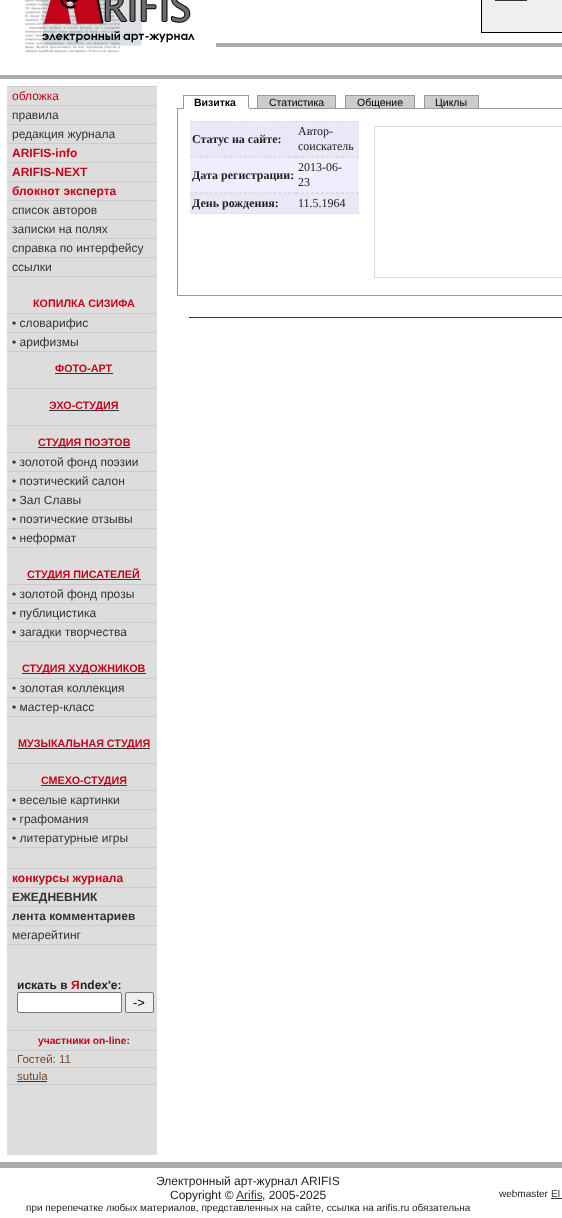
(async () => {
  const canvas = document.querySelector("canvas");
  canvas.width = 562;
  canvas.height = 1218;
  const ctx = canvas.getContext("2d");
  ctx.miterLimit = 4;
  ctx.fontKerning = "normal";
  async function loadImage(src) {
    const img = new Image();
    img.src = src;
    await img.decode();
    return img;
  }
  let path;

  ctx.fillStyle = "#ffffff";
  ctx.fillRect(0, 0, 562, 1218);
  ctx.drawImage(await loadImage("img/1.png"), 25, 0, 170, 53);
  ctx.strokeStyle = "#000000";
  ctx.strokeRect(481.5, -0.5, 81, 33);
  for (const [x, y, w, h, color] of [
    [482, 0, 80, 32, "#efefef"],
    [495, 0, 32, 1, "#333333"],
    [216, 43, 346, 4, "#aaaaaa"],
    [0, 75, 562, 4, "#aaaaaa"],
    [7, 87, 150, 1068, "#dddddd"],
    [7, 276, 150, 1, "#cccccc"],
    [7, 86, 150, 1, "#cccccc"],
    [7, 105, 150, 1, "#cccccc"],
    [7, 124, 150, 1, "#cccccc"],
    [7, 143, 150, 1, "#cccccc"],
    [7, 162, 150, 1, "#cccccc"],
    [7, 181, 150, 1, "#cccccc"],
    [7, 200, 150, 1, "#cccccc"],
    [7, 219, 150, 1, "#cccccc"],
    [7, 238, 150, 1, "#cccccc"],
    [7, 257, 150, 1, "#cccccc"],
    [7, 351, 150, 1, "#cccccc"],
    [7, 313, 150, 1, "#cccccc"],
    [7, 332, 150, 1, "#cccccc"],
    [55, 373, 58, 1, "#333333"],
    [7, 388, 150, 1, "#cccccc"],
    [49, 410, 70, 1, "#333333"],
    [7, 425, 150, 1, "#cccccc"],
    [38, 447, 92, 1, "#333333"],
    [7, 547, 150, 1, "#cccccc"],
    [7, 452, 150, 1, "#cccccc"],
    [7, 471, 150, 1, "#cccccc"],
    [7, 490, 150, 1, "#cccccc"],
    [7, 509, 150, 1, "#cccccc"],
    [7, 528, 150, 1, "#cccccc"],
    [27, 579, 114, 1, "#333333"],
    [7, 641, 150, 1, "#cccccc"],
    [7, 584, 150, 1, "#cccccc"],
    [7, 603, 150, 1, "#cccccc"],
    [7, 622, 150, 1, "#cccccc"],
    [22, 673, 124, 1, "#333333"],
    [7, 716, 150, 1, "#cccccc"],
    [7, 678, 150, 1, "#cccccc"],
    [7, 697, 150, 1, "#cccccc"],
    [18, 748, 132, 1, "#333333"],
    [7, 763, 150, 1, "#cccccc"],
    [41, 785, 86, 1, "#333333"],
    [7, 847, 150, 1, "#cccccc"],
    [7, 790, 150, 1, "#cccccc"],
    [7, 809, 150, 1, "#cccccc"],
    [7, 828, 150, 1, "#cccccc"],
    [7, 944, 150, 1, "#cccccc"],
    [7, 868, 150, 1, "#cccccc"],
    [7, 887, 150, 1, "#cccccc"],
    [7, 906, 150, 1, "#cccccc"],
    [7, 925, 150, 1, "#cccccc"],
    [7, 1030, 150, 1, "#cccccc"],
  ]) {
    ctx.fillStyle = color;
    ctx.fillRect(x, y, w, h);
  }
  ctx.fillStyle = "#ffffff";
  ctx.beginPath();
  ctx.roundRect(17.5, 992.5, 104, 20, 1.5);
  ctx.fill();
  ctx.strokeStyle = "#767676";
  ctx.stroke();
  ctx.fillStyle = "#efefef";
  ctx.beginPath();
  ctx.roundRect(125.5, 992.5, 28, 20, 1.5);
  ctx.fill();
  ctx.stroke();
  for (const [x, y, w, h, color] of [
    [7, 1084, 150, 1, "#cccccc"],
    [7, 1050, 150, 1, "#cccccc"],
    [7, 1067, 150, 1, "#cccccc"],
    [17, 1081, 30, 1, "#333333"],
    [177, 108, 385, 1, "#999999"],
    [183, 95, 66, 1, "#999999"],
    [248, 95, 1, 14, "#999999"],
    [183, 108, 66, 1, "#ffffff"],
    [183, 95, 1, 14, "#999999"],
    [258, 96, 77, 12, "#cccccc"],
    [257, 95, 79, 1, "#999999"],
    [335, 95, 1, 13, "#999999"],
    [257, 95, 1, 13, "#999999"],
    [346, 96, 68, 12, "#cccccc"],
    [345, 95, 70, 1, "#999999"],
    [414, 95, 1, 13, "#999999"],
    [345, 95, 1, 13, "#999999"],
    [425, 96, 53, 12, "#cccccc"],
    [424, 95, 55, 1, "#999999"],
    [478, 95, 1, 13, "#999999"],
    [424, 95, 1, 13, "#999999"],
    [177, 295, 385, 1, "#999999"],
    [177, 109, 1, 187, "#999999"],
    [190, 121, 169, 36, "#e8e8f8"],
  ]) {
    ctx.fillStyle = color;
    ctx.fillRect(x, y, w, h);
  }
  path = new Path2D("M190 121.5H296");
  ctx.strokeStyle = "#dddddd";
  ctx.setLineDash([3, 1.9]);
  ctx.stroke(path);
  path = new Path2D("M190 156.5H296");
  ctx.stroke(path);
  path = new Path2D("M296 121.5H359M296 156.5H359");
  ctx.setLineDash([3, 2]);
  ctx.stroke(path);
  ctx.fillStyle = "#eeeeff";
  ctx.fillRect(190, 157, 169, 36);
  path = new Path2D("M190 157.5H296");
  ctx.setLineDash([3, 1.9]);
  ctx.stroke(path);
  path = new Path2D("M190 192.5H296");
  ctx.stroke(path);
  path = new Path2D("M296 157.5H359M296 192.5H359");
  ctx.setLineDash([3, 2]);
  ctx.stroke(path);
  ctx.fillStyle = "#e8e8f8";
  ctx.fillRect(190, 193, 169, 21);
  path = new Path2D("M190 193.5H296");
  ctx.setLineDash([3, 1.9]);
  ctx.stroke(path);
  path = new Path2D("M190 213.5H296");
  ctx.stroke(path);
  path = new Path2D("M296 193.5H359M296 213.5H359");
  ctx.setLineDash([3, 2]);
  ctx.stroke(path);
  ctx.setLineDash([]);
  ctx.strokeRect(374.5, 126.5, 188, 151);
  for (const [x, y, w, h, color] of [
    [189, 317, 373, 1, "#522c03"],
    [0, 1162, 562, 6, "#aaaaaa"],
    [236, 1200, 26, 1, "#333333"],
    [551, 1198, 11, 1, "#333333"],
  ]) {
    ctx.fillStyle = color;
    ctx.fillRect(x, y, w, h);
  }
  ctx.font = "12px Liberation Sans";
  ctx.fillStyle = "#c2041a";
  ctx.fillText("обложка", 12, 100);
  ctx.fillStyle = "#333333";
  ctx.fillText("правила", 12, 119);
  ctx.fillText("редакция журнала", 12, 138);
  ctx.font = "bold 12px Liberation Sans";
  ctx.fillStyle = "#c2041a";
  for (const [text, x, y] of [
    ["ARIFIS-info", 12, 157],
    ["ARIFIS-NEXT", 12, 176],
    ["блокнот эксперта", 12, 195],
  ]) {
    ctx.fillText(text, x, y);
  }
  ctx.font = "12px Liberation Sans";
  ctx.fillStyle = "#333333";
  for (const [text, x, y] of [
    ["список авторов", 12, 214],
    ["записки на полях", 12, 233],
    ["справка по интерфейсу", 12, 252],
    ["ссылки", 12, 271],
  ]) {
    ctx.fillText(text, x, y);
  }
  ctx.font = "bold 10.75px Liberation Sans";
  ctx.fillStyle = "#c2041a";
  ctx.fillText("КОПИЛКА СИЗИФА", 33, 307);
  ctx.font = "12px Liberation Sans";
  ctx.fillStyle = "#333333";
  ctx.fillText("• словарифис", 12, 327);
  ctx.fillText("• арифизмы", 12, 346);
  ctx.font = "bold 10.75px Liberation Sans";
  ctx.fillStyle = "#c2041a";
  for (const [text, x, y] of [
    ["ФОТО-АРТ", 55, 372],
    ["ЭХО-СТУДИЯ", 49, 409],
    ["СТУДИЯ ПОЭТОВ", 38, 446],
  ]) {
    ctx.fillText(text, x, y);
  }
  ctx.font = "12px Liberation Sans";
  ctx.fillStyle = "#333333";
  for (const [text, x, y] of [
    ["• золотой фонд поэзии", 12, 466],
    ["• поэтический салон", 12, 485],
    ["• Зал Славы", 12, 504],
    ["• поэтические отзывы", 12, 523],
    ["• неформат", 12, 542],
  ]) {
    ctx.fillText(text, x, y);
  }
  ctx.font = "bold 10.75px Liberation Sans";
  ctx.fillStyle = "#c2041a";
  ctx.fillText("СТУДИЯ ПИСАТЕЛЕЙ", 27, 578);
  ctx.font = "12px Liberation Sans";
  ctx.fillStyle = "#333333";
  for (const [text, x, y] of [
    ["• золотой фонд прозы", 12, 598],
    ["• публицистика", 12, 617],
    ["• загадки творчества", 12, 636],
  ]) {
    ctx.fillText(text, x, y);
  }
  ctx.font = "bold 10.75px Liberation Sans";
  ctx.fillStyle = "#c2041a";
  ctx.fillText("СТУДИЯ ХУДОЖНИКОВ", 22, 672);
  ctx.font = "12px Liberation Sans";
  ctx.fillStyle = "#333333";
  ctx.fillText("• золотая коллекция", 12, 692);
  ctx.fillText("• мастер-класс", 12, 711);
  ctx.font = "bold 10.75px Liberation Sans";
  ctx.fillStyle = "#c2041a";
  ctx.fillText("МУЗЫКАЛЬНАЯ СТУДИЯ", 18, 747);
  ctx.fillText("СМЕХО-СТУДИЯ", 41, 784);
  ctx.font = "12px Liberation Sans";
  ctx.fillStyle = "#333333";
  for (const [text, x, y] of [
    ["• веселые картинки", 12, 804],
    ["• графомания", 12, 823],
    ["• литературные игры", 12, 842],
  ]) {
    ctx.fillText(text, x, y);
  }
  ctx.font = "bold 12px Liberation Sans";
  ctx.fillStyle = "#c2041a";
  ctx.fillText("конкурсы журнала", 12, 882);
  ctx.fillStyle = "#333333";
  ctx.fillText("ЕЖЕДНЕВНИК", 12, 901);
  ctx.fillText("лента комментариев", 12, 920);
  ctx.font = "12px Liberation Sans";
  ctx.fillText("мегарейтинг", 12, 939);
  ctx.font = "bold 12px Liberation Sans";
  ctx.fillStyle = "#222222";
  ctx.fillText("искать в", 17, 989);
  ctx.fillStyle = "#c2041a";
  ctx.fillText("Я", 71, 989);
  ctx.fillStyle = "#222222";
  ctx.fillText("ndex'е:", 80, 989);
  ctx.font = "13px Liberation Sans";
  ctx.fillStyle = "#000000";
  ctx.fillText("->", 133, 1007);
  ctx.font = "bold 10.25px Liberation Sans";
  ctx.fillStyle = "#c2041a";
  ctx.fillText("участники on-line:", 38, 1044);
  ctx.font = "11.5px Liberation Sans";
  ctx.fillStyle = "#7a471e";
  ctx.fillText("Гостей: 11", 17, 1063);
  ctx.fillText("sutula", 17, 1080);
  ctx.font = "bold 10.5px Liberation Sans";
  ctx.fillStyle = "#000000";
  ctx.fillText("Визитка", 194, 106);
  ctx.font = "10.5px Liberation Sans";
  for (const [text, x, y] of [
    ["Статистика", 269, 106],
    ["Общение", 357, 106],
    ["Циклы", 435, 106],
  ]) {
    ctx.fillText(text, x, y);
  }
  ctx.font = "bold 12px Liberation Serif";
  ctx.fillStyle = "#222222";
  ctx.fillText("Статус на сайте:", 192, 143);
  ctx.font = "12px Liberation Serif";
  ctx.fillText("Автор-", 298, 135);
  ctx.fillText("соискатель", 298, 150);
  ctx.font = "bold 12px Liberation Serif";
  ctx.fillText("Дата регистрации:", 192, 179);
  ctx.font = "12px Liberation Serif";
  ctx.fillText("2013-06-", 298, 171);
  ctx.fillText("23", 298, 186);
  ctx.font = "bold 12px Liberation Serif";
  ctx.fillText("День рождения:", 192, 207);
  ctx.font = "12px Liberation Serif";
  ctx.fillText("11.5.1964", 298, 207);
  ctx.font = "12px Liberation Sans";
  ctx.fillText("Электронный арт-журнал ARIFIS", 156, 1185);
  ctx.fillText("Copyright ©", 170, 1199);
  ctx.fillStyle = "#333333";
  ctx.fillText("Arifis", 236, 1199);
  ctx.fillStyle = "#222222";
  ctx.fillText(", 2005-2025", 262, 1199);
  ctx.font = "10px Liberation Sans";
  ctx.fillText("при перепечатке любых материалов, представленных на сайте, ссылка на arifis.ru обязательна", 26, 1211);
  ctx.fillText("webmaster", 499, 1197);
  ctx.fillStyle = "#333333";
  ctx.fillText("El", 551, 1197);
})();
